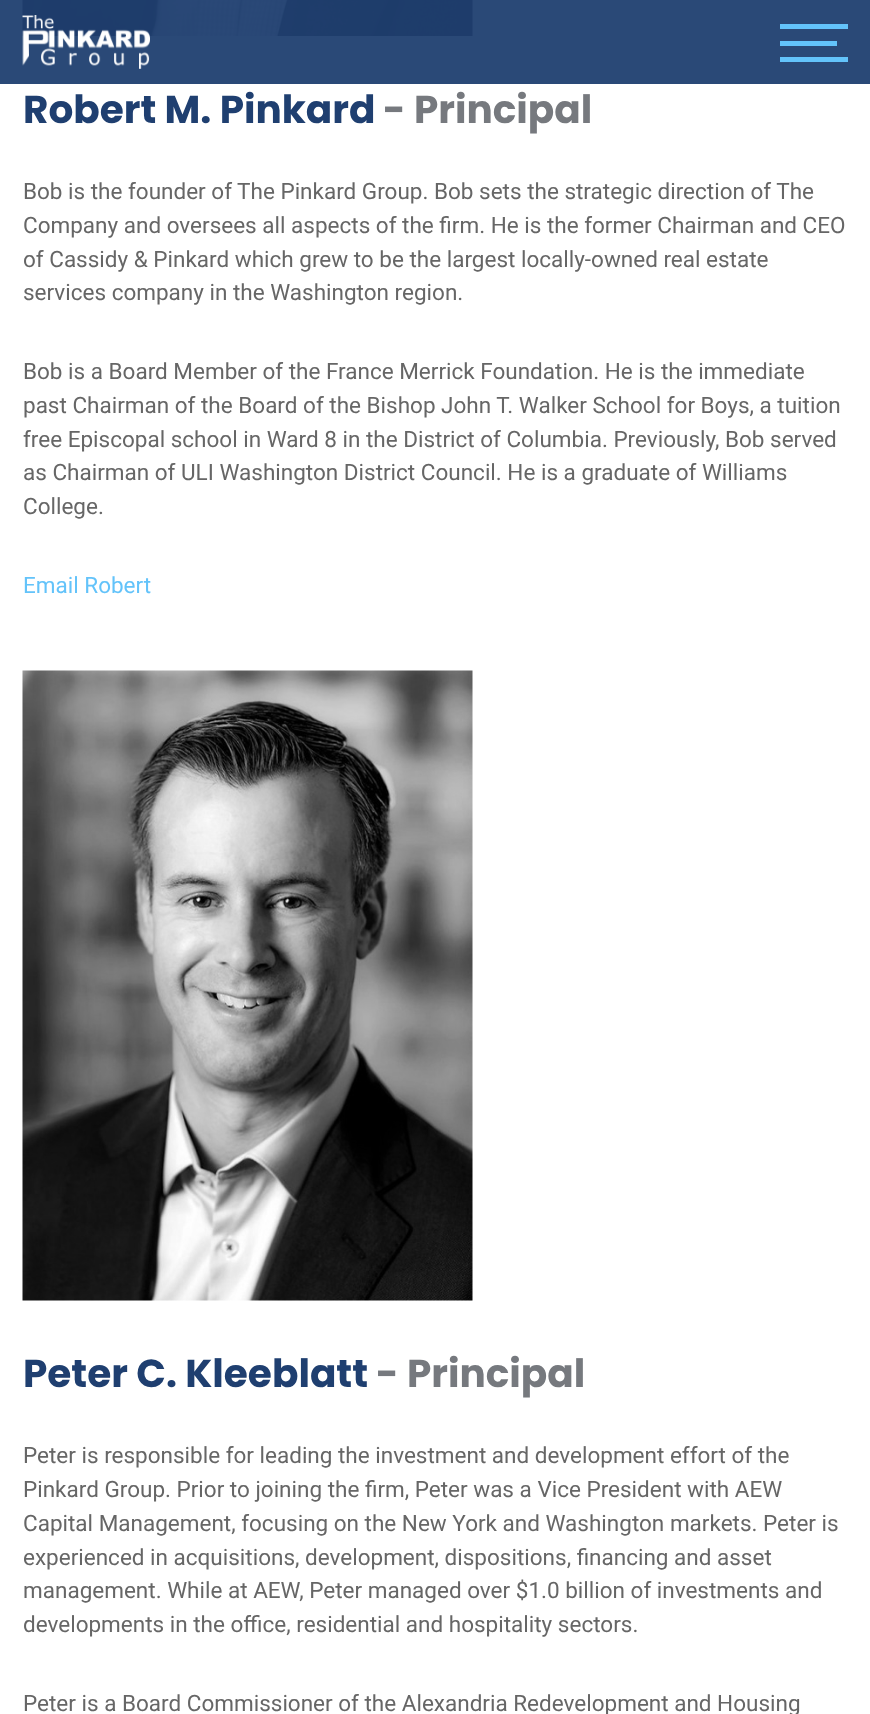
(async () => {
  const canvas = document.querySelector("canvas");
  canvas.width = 870;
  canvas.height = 1714;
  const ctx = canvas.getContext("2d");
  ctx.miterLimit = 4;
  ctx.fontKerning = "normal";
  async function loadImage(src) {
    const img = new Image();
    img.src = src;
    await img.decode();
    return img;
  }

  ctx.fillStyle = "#ffffff";
  ctx.fillRect(0, 0, 870, 1714);
  ctx.fillStyle = "#2a4977";
  ctx.fillRect(0, 0, 870, 84);
  ctx.drawImage(await loadImage("img/2.png"), 22, 0, 451, 36);
  ctx.drawImage(await loadImage("img/1.png"), 22, 15, 128, 54);
  for (const [x, y, w, h, color] of [
    [780, 24, 68, 5, "#63c3fa"],
    [780, 57, 68, 5, "#63c3fa"],
    [780, 41, 57, 5, "#63c3fa"],
  ]) {
    ctx.fillStyle = color;
    ctx.fillRect(x, y, w, h);
  }
  ctx.drawImage(await loadImage("img/3.png"), 22, 670, 451, 631);
  ctx.font = "bold 39px Poppins";
  ctx.fillStyle = "#1f3f70";
  ctx.fillText("Robert M. Pinkard", 23, 123);
  ctx.fillStyle = "#76797e";
  ctx.fillText("- Principal", 383, 123);
  ctx.font = "22.5px Roboto";
  ctx.fillStyle = "#666666";
  for (const [text, x, y] of [
    ["Bob is the founder of The Pinkard Group. Bob sets the strategic direction of The", 23, 199],
    ["Company and oversees all aspects of the firm. He is the former Chairman and CEO", 23, 233],
    ["of Cassidy & Pinkard which grew to be the largest locally-owned real estate", 23, 267],
    ["services company in the Washington region.", 23, 300],
    ["Bob is a Board Member of the France Merrick Foundation. He is the immediate", 23, 379],
    ["past Chairman of the Board of the Bishop John T. Walker School for Boys, a tuition", 23, 413],
    ["free Episcopal school in Ward 8 in the District of Columbia. Previously, Bob served", 23, 447],
    ["as Chairman of ULI Washington District Council. He is a graduate of Williams", 23, 480],
    ["College.", 23, 514],
  ]) {
    ctx.fillText(text, x, y);
  }
  ctx.fillStyle = "#63c3fa";
  ctx.fillText("Email Robert", 23, 593);
  ctx.font = "bold 39px Poppins";
  ctx.fillStyle = "#1f3f70";
  ctx.fillText("Peter C. Kleeblatt", 23, 1387);
  ctx.fillStyle = "#76797e";
  ctx.fillText("- Principal", 376, 1387);
  ctx.font = "22.5px Roboto";
  ctx.fillStyle = "#666666";
  for (const [text, x, y] of [
    ["Peter is responsible for leading the investment and development effort of the", 23, 1463],
    ["Pinkard Group. Prior to joining the firm, Peter was a Vice President with AEW", 23, 1497],
    ["Capital Management, focusing on the New York and Washington markets. Peter is", 23, 1531],
    ["experienced in acquisitions, development, dispositions, financing and asset", 23, 1565],
    ["management. While at AEW, Peter managed over $1.0 billion of investments and", 23, 1598],
    ["developments in the office, residential and hospitality sectors.", 23, 1632],
    ["Peter is a Board Commissioner of the Alexandria Redevelopment and Housing", 23, 1711],
  ]) {
    ctx.fillText(text, x, y);
  }
})();
